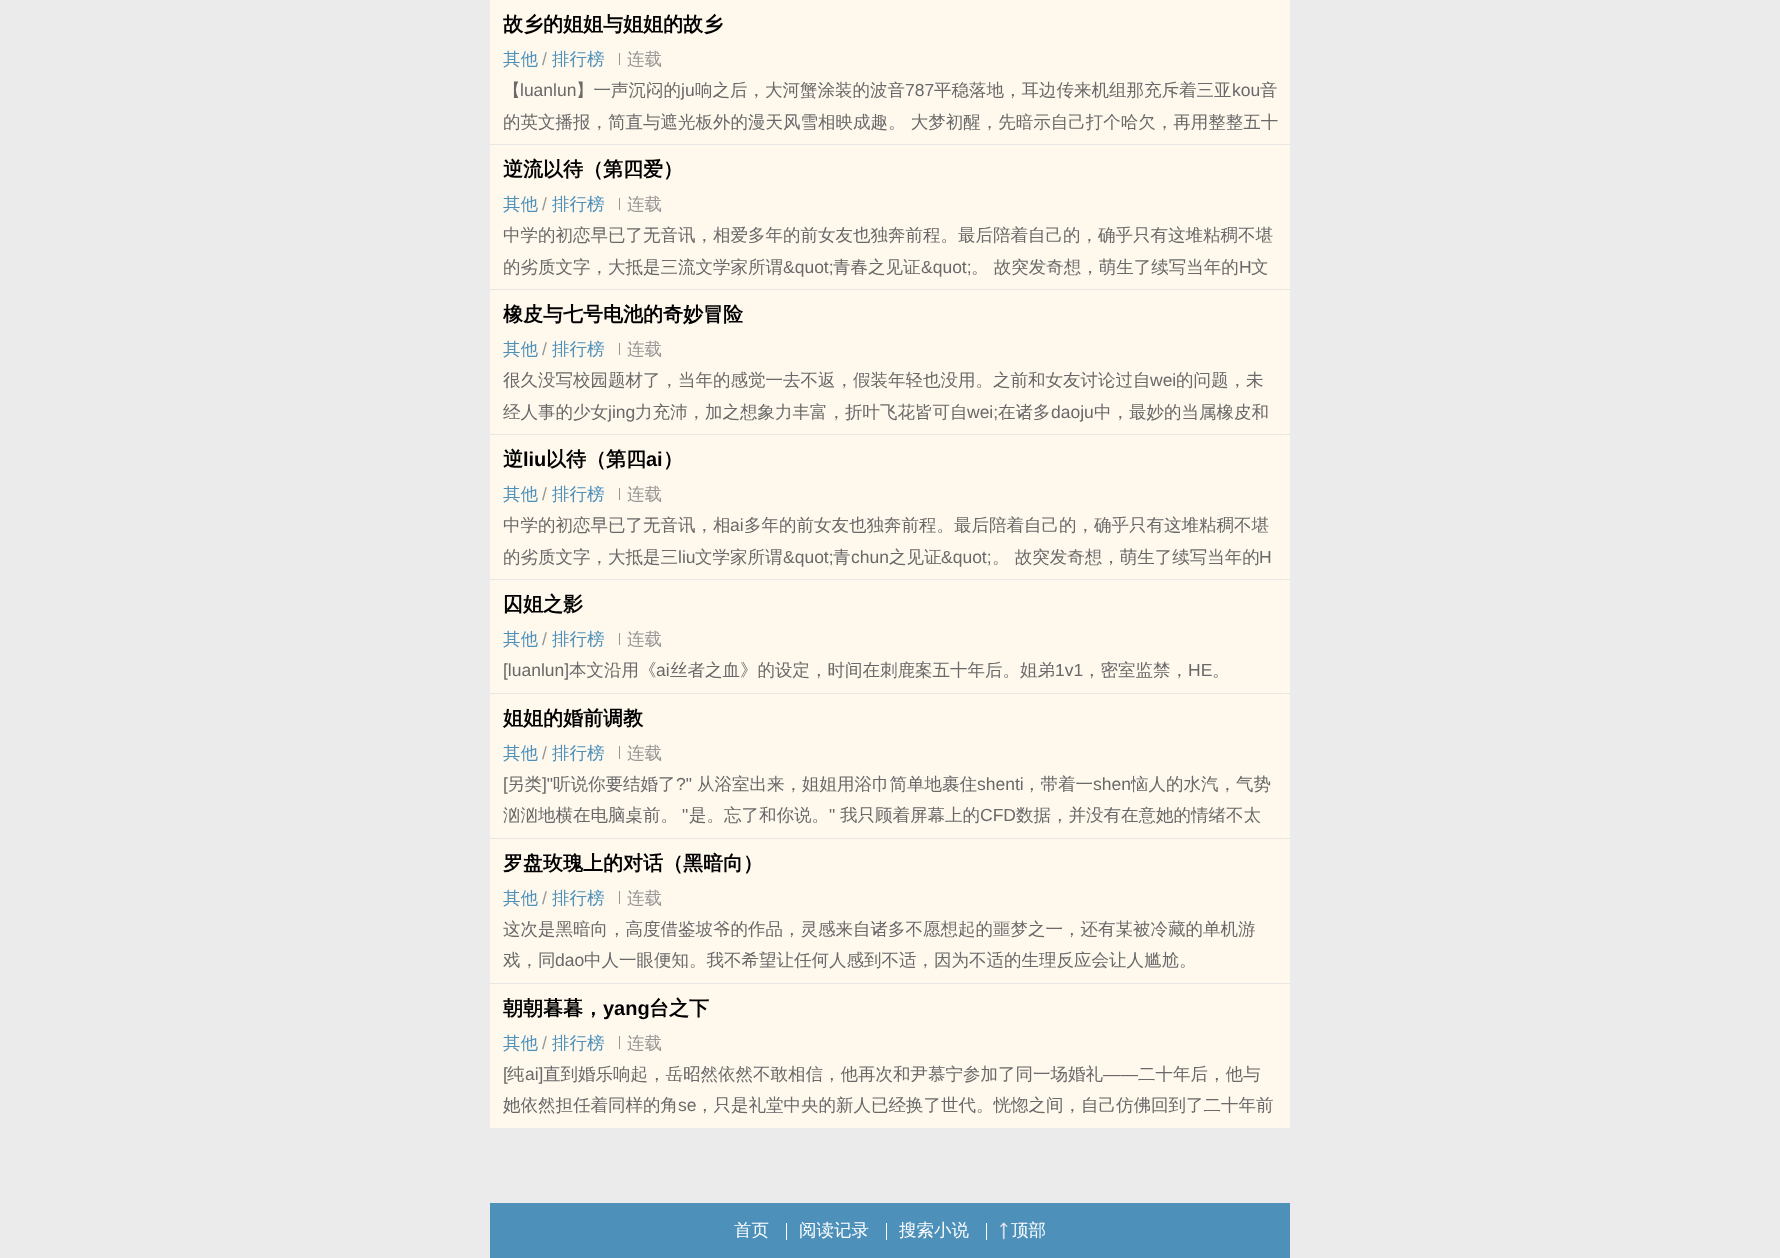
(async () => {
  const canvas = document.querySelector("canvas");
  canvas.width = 1780;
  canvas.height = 1258;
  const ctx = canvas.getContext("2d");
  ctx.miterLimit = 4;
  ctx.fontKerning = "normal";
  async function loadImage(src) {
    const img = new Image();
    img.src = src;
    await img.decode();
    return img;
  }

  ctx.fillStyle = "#ebebeb";
  ctx.fillRect(0, 0, 1780, 1258);
  for (const [x, y, w, h, color] of [
    [490, 0, 800, 144, "#fff8ed"],
    [619, 53, 1, 12, "#959595"],
    [490, 145, 800, 144, "#fff8ed"],
    [490, 144, 800, 1, "#e9e7e4"],
    [619, 198, 1, 12, "#959595"],
    [490, 290, 800, 144, "#fff8ed"],
    [490, 289, 800, 1, "#e9e7e4"],
    [619, 343, 1, 12, "#959595"],
    [490, 435, 800, 144, "#fff8ed"],
    [490, 434, 800, 1, "#e9e7e4"],
    [619, 488, 1, 12, "#959595"],
    [490, 580, 800, 113, "#fff8ed"],
    [490, 579, 800, 1, "#e9e7e4"],
    [619, 633, 1, 12, "#959595"],
    [490, 694, 800, 144, "#fff8ed"],
    [490, 693, 800, 1, "#e9e7e4"],
    [619, 746, 1, 13, "#959595"],
    [490, 839, 800, 144, "#fff8ed"],
    [490, 838, 800, 1, "#e9e7e4"],
    [619, 891, 1, 13, "#959595"],
    [490, 984, 800, 144, "#fff8ed"],
    [490, 983, 800, 1, "#e9e7e4"],
    [619, 1036, 1, 13, "#959595"],
    [490, 1203, 800, 55, "#4d91bb"],
    [786, 1223, 1, 17, "#ffffff"],
    [886, 1223, 1, 17, "#ffffff"],
    [986, 1223, 1, 17, "#ffffff"],
  ]) {
    ctx.fillStyle = color;
    ctx.fillRect(x, y, w, h);
  }
  ctx.drawImage(await loadImage("img/1.png"), 999, 1222, 9, 18);
  ctx.font = "bold 20px WenQuanYi Zen Hei";
  ctx.fillStyle = "#000000";
  ctx.fillText("故乡的姐姐与姐姐的故乡", 503, 31);
  ctx.font = "500 17.5px WenQuanYi Zen Hei";
  ctx.fillStyle = "#4d91bb";
  ctx.fillText("其他", 503, 65);
  ctx.font = "17.5px Liberation Sans";
  ctx.fillStyle = "#959595";
  ctx.fillText("/", 542, 65);
  ctx.font = "500 17.5px WenQuanYi Zen Hei";
  ctx.fillStyle = "#4d91bb";
  ctx.fillText("排行榜", 552, 65);
  ctx.fillStyle = "#959595";
  ctx.fillText("连载", 627, 65);
  ctx.fillStyle = "#696969";
  ctx.fillText("【", 503, 96);
  ctx.font = "17.5px Liberation Sans";
  ctx.fillText("luanlun", 520, 96);
  ctx.font = "500 17.5px WenQuanYi Zen Hei";
  ctx.fillText("】一声沉闷的", 576, 96);
  ctx.font = "17.5px Liberation Sans";
  ctx.fillText("ju", 681, 96);
  ctx.font = "500 17.5px WenQuanYi Zen Hei";
  ctx.fillText("响之后，大河蟹涂装的波音", 695, 96);
  ctx.font = "17.5px Liberation Sans";
  ctx.fillText("787", 905, 96);
  ctx.font = "500 17.5px WenQuanYi Zen Hei";
  ctx.fillText("平稳落地，耳边传来机组那充斥着三亚", 934, 96);
  ctx.font = "17.5px Liberation Sans";
  ctx.fillText("kou", 1232, 96);
  ctx.font = "500 17.5px WenQuanYi Zen Hei";
  ctx.fillText("音", 1260, 96);
  ctx.fillText("的英文播报，简直与遮光板外的漫天风雪相映成趣。 大梦初醒，先暗示自己打个哈欠，再用整整五十", 503, 128);
  ctx.font = "bold 20px WenQuanYi Zen Hei";
  ctx.fillStyle = "#000000";
  ctx.fillText("逆流以待（第四爱）", 503, 176);
  ctx.font = "500 17.5px WenQuanYi Zen Hei";
  ctx.fillStyle = "#4d91bb";
  ctx.fillText("其他", 503, 210);
  ctx.font = "17.5px Liberation Sans";
  ctx.fillStyle = "#959595";
  ctx.fillText("/", 542, 210);
  ctx.font = "500 17.5px WenQuanYi Zen Hei";
  ctx.fillStyle = "#4d91bb";
  ctx.fillText("排行榜", 552, 210);
  ctx.fillStyle = "#959595";
  ctx.fillText("连载", 627, 210);
  ctx.fillStyle = "#696969";
  ctx.fillText("中学的初恋早已了无音讯，相爱多年的前女友也独奔前程。最后陪着自己的，确乎只有这堆粘稠不堪", 503, 241);
  ctx.fillText("的劣质文字，大抵是三流文学家所谓", 503, 273);
  ctx.font = "17.5px Liberation Sans";
  ctx.fillText("&quot;", 783, 273);
  ctx.font = "500 17.5px WenQuanYi Zen Hei";
  ctx.fillText("青春之见证", 833, 273);
  ctx.font = "17.5px Liberation Sans";
  ctx.fillText("&quot;", 921, 273);
  ctx.font = "500 17.5px WenQuanYi Zen Hei";
  ctx.fillText("。 故突发奇想，萌生了续写当年的", 971, 273);
  ctx.font = "17.5px Liberation Sans";
  ctx.fillText("‌‍H‌‌", 1239, 273);
  ctx.font = "500 17.5px WenQuanYi Zen Hei";
  ctx.fillText("文", 1251, 273);
  ctx.font = "bold 20px WenQuanYi Zen Hei";
  ctx.fillStyle = "#000000";
  ctx.fillText("橡皮与七号电池的奇妙冒险", 503, 321);
  ctx.font = "500 17.5px WenQuanYi Zen Hei";
  ctx.fillStyle = "#4d91bb";
  ctx.fillText("其他", 503, 355);
  ctx.font = "17.5px Liberation Sans";
  ctx.fillStyle = "#959595";
  ctx.fillText("/", 542, 355);
  ctx.font = "500 17.5px WenQuanYi Zen Hei";
  ctx.fillStyle = "#4d91bb";
  ctx.fillText("排行榜", 552, 355);
  ctx.fillStyle = "#959595";
  ctx.fillText("连载", 627, 355);
  ctx.fillStyle = "#696969";
  ctx.fillText("很久没写校园题材了，当年的感觉一去不返，假装年轻也没用。之前和女友讨论过自", 503, 386);
  ctx.font = "17.5px Liberation Sans";
  ctx.fillText("wei", 1150, 386);
  ctx.font = "500 17.5px WenQuanYi Zen Hei";
  ctx.fillText("的问题，未", 1176, 386);
  ctx.save();
  ctx.beginPath();
  ctx.rect(503, 365, 775, 63);
  ctx.clip();
  ctx.fillText("经人事的少女", 503, 418);
  ctx.restore();
  ctx.font = "17.5px Liberation Sans";
  ctx.fillText("jing", 608, 418);
  ctx.font = "500 17.5px WenQuanYi Zen Hei";
  ctx.fillText("力充沛，加之想象力丰富，折叶飞花皆可自", 635, 418);
  ctx.font = "17.5px Liberation Sans";
  ctx.fillText("wei;", 967, 418);
  ctx.font = "500 17.5px WenQuanYi Zen Hei";
  ctx.fillText("在诸多", 998, 418);
  ctx.font = "17.5px Liberation Sans";
  ctx.fillText("daoju", 1051, 418);
  ctx.font = "500 17.5px WenQuanYi Zen Hei";
  ctx.fillText("中，最妙的当属橡皮和", 1094, 418);
  ctx.font = "bold 20px WenQuanYi Zen Hei";
  ctx.fillStyle = "#000000";
  ctx.fillText("逆", 503, 466);
  ctx.font = "bold 20px Liberation Sans";
  ctx.fillText("liu", 523, 466);
  ctx.font = "bold 20px WenQuanYi Zen Hei";
  ctx.fillText("以待（第四", 546, 466);
  ctx.font = "bold 20px Liberation Sans";
  ctx.fillText("ai", 646, 466);
  ctx.font = "bold 20px WenQuanYi Zen Hei";
  ctx.fillText("）", 663, 466);
  ctx.font = "500 17.5px WenQuanYi Zen Hei";
  ctx.fillStyle = "#4d91bb";
  ctx.fillText("其他", 503, 500);
  ctx.font = "17.5px Liberation Sans";
  ctx.fillStyle = "#959595";
  ctx.fillText("/", 542, 500);
  ctx.font = "500 17.5px WenQuanYi Zen Hei";
  ctx.fillStyle = "#4d91bb";
  ctx.fillText("排行榜", 552, 500);
  ctx.fillStyle = "#959595";
  ctx.fillText("连载", 627, 500);
  ctx.fillStyle = "#696969";
  ctx.fillText("中学的初恋早已了无音讯，相", 503, 531);
  ctx.font = "17.5px Liberation Sans";
  ctx.fillText("ai", 730, 531);
  ctx.font = "500 17.5px WenQuanYi Zen Hei";
  ctx.fillText("多年的前女友也独奔前程。最后陪着自己的，确乎只有这堆粘稠不堪", 744, 531);
  ctx.fillText("的劣质文字，大抵是三", 503, 563);
  ctx.font = "17.5px Liberation Sans";
  ctx.fillText("liu", 678, 563);
  ctx.font = "500 17.5px WenQuanYi Zen Hei";
  ctx.fillText("文学家所谓", 695, 563);
  ctx.font = "17.5px Liberation Sans";
  ctx.fillText("&quot;", 783, 563);
  ctx.font = "500 17.5px WenQuanYi Zen Hei";
  ctx.fillText("青", 833, 563);
  ctx.font = "17.5px Liberation Sans";
  ctx.fillText("chun", 851, 563);
  ctx.font = "500 17.5px WenQuanYi Zen Hei";
  ctx.fillText("之见证", 889, 563);
  ctx.font = "17.5px Liberation Sans";
  ctx.fillText("&quot;", 941, 563);
  ctx.font = "500 17.5px WenQuanYi Zen Hei";
  ctx.fillText("。 故突发奇想，萌生了续写当年的", 992, 563);
  ctx.font = "17.5px Liberation Sans";
  ctx.fillText("‌‍H‌‌", 1259, 563);
  ctx.font = "bold 20px WenQuanYi Zen Hei";
  ctx.fillStyle = "#000000";
  ctx.fillText("囚姐之影", 503, 611);
  ctx.font = "500 17.5px WenQuanYi Zen Hei";
  ctx.fillStyle = "#4d91bb";
  ctx.fillText("其他", 503, 645);
  ctx.font = "17.5px Liberation Sans";
  ctx.fillStyle = "#959595";
  ctx.fillText("/", 542, 645);
  ctx.font = "500 17.5px WenQuanYi Zen Hei";
  ctx.fillStyle = "#4d91bb";
  ctx.fillText("排行榜", 552, 645);
  ctx.fillStyle = "#959595";
  ctx.fillText("连载", 627, 645);
  ctx.font = "17.5px Liberation Sans";
  ctx.fillStyle = "#696969";
  ctx.fillText("[luanlun]", 503, 676);
  ctx.font = "500 17.5px WenQuanYi Zen Hei";
  ctx.fillText("本文沿用《", 569, 676);
  ctx.font = "17.5px Liberation Sans";
  ctx.fillText("ai", 656, 676);
  ctx.font = "500 17.5px WenQuanYi Zen Hei";
  ctx.fillText("丝者之血》的设定，时间在刺鹿案五十年后。姐弟", 670, 676);
  ctx.font = "17.5px Liberation Sans";
  ctx.fillText("1‌v‌‍1", 1055, 676);
  ctx.font = "500 17.5px WenQuanYi Zen Hei";
  ctx.fillText("，密室监禁，", 1083, 676);
  ctx.font = "17.5px Liberation Sans";
  ctx.fillText("HE", 1188, 676);
  ctx.font = "500 17.5px WenQuanYi Zen Hei";
  ctx.fillText("。", 1212, 676);
  ctx.font = "bold 20px WenQuanYi Zen Hei";
  ctx.fillStyle = "#000000";
  ctx.fillText("姐姐的婚前调教", 503, 725);
  ctx.font = "500 17.5px WenQuanYi Zen Hei";
  ctx.fillStyle = "#4d91bb";
  ctx.fillText("其他", 503, 759);
  ctx.font = "17.5px Liberation Sans";
  ctx.fillStyle = "#959595";
  ctx.fillText("/", 542, 759);
  ctx.font = "500 17.5px WenQuanYi Zen Hei";
  ctx.fillStyle = "#4d91bb";
  ctx.fillText("排行榜", 552, 759);
  ctx.fillStyle = "#959595";
  ctx.fillText("连载", 627, 759);
  ctx.font = "17.5px Liberation Sans";
  ctx.fillStyle = "#696969";
  ctx.fillText("[", 503, 790);
  ctx.font = "500 17.5px WenQuanYi Zen Hei";
  ctx.fillText("另类", 507, 790);
  ctx.font = "17.5px Liberation Sans";
  ctx.fillText("]\"", 542, 790);
  ctx.font = "500 17.5px WenQuanYi Zen Hei";
  ctx.fillText("听说你要结婚了", 553, 790);
  ctx.font = "17.5px Liberation Sans";
  ctx.fillText("?\"", 676, 790);
  ctx.font = "500 17.5px WenQuanYi Zen Hei";
  ctx.fillText("从浴室出来，姐姐用浴巾简单地裹住", 697, 790);
  ctx.font = "17.5px Liberation Sans";
  ctx.fillText("shenti", 977, 790);
  ctx.font = "500 17.5px WenQuanYi Zen Hei";
  ctx.fillText("，带着一", 1023, 790);
  ctx.font = "17.5px Liberation Sans";
  ctx.fillText("shen", 1093, 790);
  ctx.font = "500 17.5px WenQuanYi Zen Hei";
  ctx.fillText("恼人的水汽，气势", 1131, 790);
  ctx.fillText("汹汹地横在电脑桌前。", 503, 821);
  ctx.font = "17.5px Liberation Sans";
  ctx.fillText("\"", 682, 821);
  ctx.font = "500 17.5px WenQuanYi Zen Hei";
  ctx.fillText("是。忘了和你说。", 689, 821);
  ctx.font = "17.5px Liberation Sans";
  ctx.fillText("\"", 829, 821);
  ctx.font = "500 17.5px WenQuanYi Zen Hei";
  ctx.fillText("我只顾着屏幕上的", 840, 821);
  ctx.font = "17.5px Liberation Sans";
  ctx.fillText("CFD", 980, 821);
  ctx.font = "500 17.5px WenQuanYi Zen Hei";
  ctx.fillText("数据，并没有在意她的情绪不太", 1016, 821);
  ctx.font = "bold 20px WenQuanYi Zen Hei";
  ctx.fillStyle = "#000000";
  ctx.fillText("罗盘玫瑰上的对话（黑暗向）", 503, 870);
  ctx.font = "500 17.5px WenQuanYi Zen Hei";
  ctx.fillStyle = "#4d91bb";
  ctx.fillText("其他", 503, 904);
  ctx.font = "17.5px Liberation Sans";
  ctx.fillStyle = "#959595";
  ctx.fillText("/", 542, 904);
  ctx.font = "500 17.5px WenQuanYi Zen Hei";
  ctx.fillStyle = "#4d91bb";
  ctx.fillText("排行榜", 552, 904);
  ctx.fillStyle = "#959595";
  ctx.fillText("连载", 627, 904);
  ctx.fillStyle = "#696969";
  ctx.fillText("这次是黑暗向，高度借鉴坡爷的作品，灵感来自诸多不愿想起的噩梦之一，还有某被冷藏的单机游", 503, 935);
  ctx.fillText("戏，同", 503, 966);
  ctx.font = "17.5px Liberation Sans";
  ctx.fillText("dao", 555, 966);
  ctx.font = "500 17.5px WenQuanYi Zen Hei";
  ctx.fillText("中人一眼便知。我不希望让任何人感到不适，因为不适的生理反应会让人尴尬。", 584, 966);
  ctx.font = "bold 20px WenQuanYi Zen Hei";
  ctx.fillStyle = "#000000";
  ctx.fillText("朝朝暮暮，", 503, 1015);
  ctx.font = "bold 20px Liberation Sans";
  ctx.fillText("yang", 603, 1015);
  ctx.font = "bold 20px WenQuanYi Zen Hei";
  ctx.fillText("台之下", 649, 1015);
  ctx.font = "500 17.5px WenQuanYi Zen Hei";
  ctx.fillStyle = "#4d91bb";
  ctx.fillText("其他", 503, 1049);
  ctx.font = "17.5px Liberation Sans";
  ctx.fillStyle = "#959595";
  ctx.fillText("/", 542, 1049);
  ctx.font = "500 17.5px WenQuanYi Zen Hei";
  ctx.fillStyle = "#4d91bb";
  ctx.fillText("排行榜", 552, 1049);
  ctx.fillStyle = "#959595";
  ctx.fillText("连载", 627, 1049);
  ctx.font = "17.5px Liberation Sans";
  ctx.fillStyle = "#696969";
  ctx.fillText("[", 503, 1080);
  ctx.font = "500 17.5px WenQuanYi Zen Hei";
  ctx.fillText("纯", 507, 1080);
  ctx.font = "17.5px Liberation Sans";
  ctx.fillText("ai]", 525, 1080);
  ctx.font = "500 17.5px WenQuanYi Zen Hei";
  ctx.fillText("直到婚乐响起，岳昭然依然不敢相信，他再次和尹慕宁参加了同一场婚礼", 543, 1080);
  ctx.font = "17.5px Liberation Sans";
  ctx.fillText("——", 1103, 1080);
  ctx.font = "500 17.5px WenQuanYi Zen Hei";
  ctx.fillText("二十年后，他与", 1138, 1080);
  ctx.fillText("她依然担任着同样的角", 503, 1111);
  ctx.font = "17.5px Liberation Sans";
  ctx.fillText("se", 678, 1111);
  ctx.font = "500 17.5px WenQuanYi Zen Hei";
  ctx.fillText("，只是礼堂中央的新人已经换了世代。恍惚之间，自己仿佛回到了二十年前", 696, 1111);
  ctx.fillStyle = "#ffffff";
  for (const [text, x, y] of [
    ["首页", 734, 1236],
    ["阅读记录", 799, 1236],
    ["搜索小说", 899, 1236],
    ["顶部", 1011, 1236],
  ]) {
    ctx.fillText(text, x, y);
  }
})();
